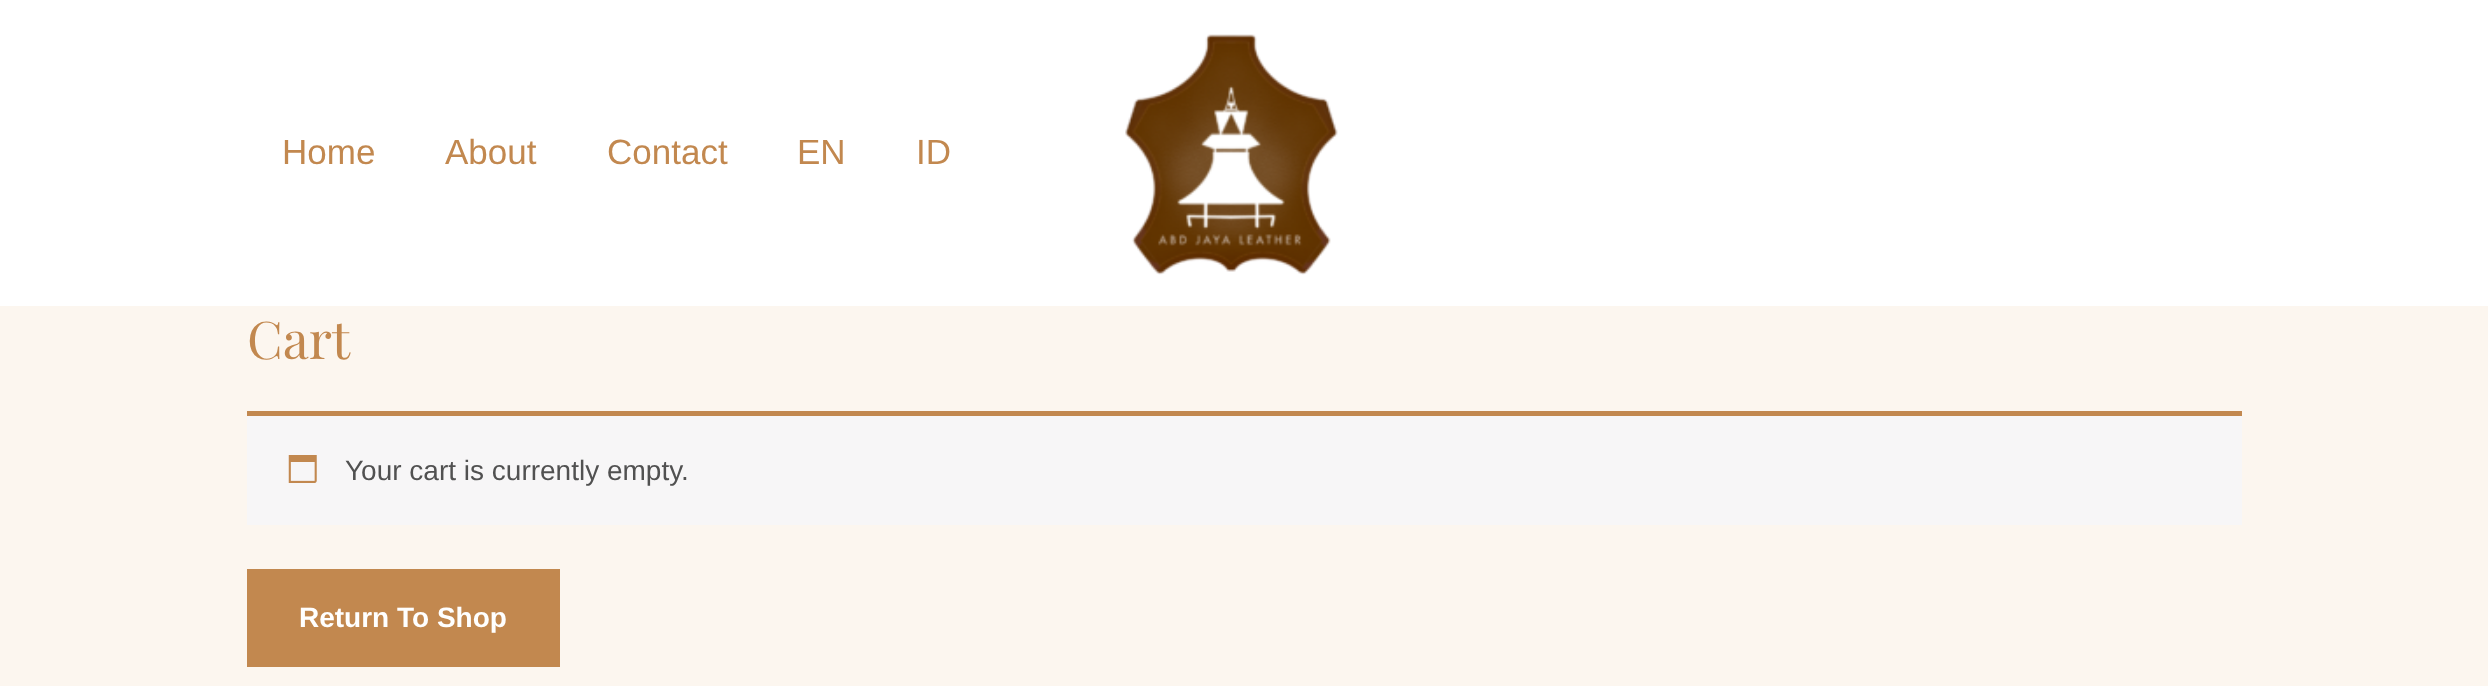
(async () => {
  const canvas = document.querySelector("canvas");
  canvas.width = 2488;
  canvas.height = 686;
  const ctx = canvas.getContext("2d");
  ctx.miterLimit = 4;
  ctx.fontKerning = "normal";
  async function loadImage(src) {
    const img = new Image();
    img.src = src;
    await img.decode();
    return img;
  }

  ctx.fillStyle = "#fcf6ef";
  ctx.fillRect(0, 0, 2488, 686);
  ctx.fillStyle = "#ffffff";
  ctx.fillRect(0, 0, 2488, 306);
  ctx.drawImage(await loadImage("img/1.png"), 1125, 34, 213, 241);
  ctx.fillStyle = "#f7f6f7";
  ctx.fillRect(247, 416, 1995, 109);
  ctx.fillStyle = "#c2884f";
  ctx.fillRect(247, 411, 1995, 5);
  ctx.drawImage(await loadImage("img/2.png"), 288, 455, 29, 28);
  ctx.fillRect(247, 569, 313, 98);
  ctx.font = "35px Liberation Sans";
  for (const [text, x, y] of [
    ["Home", 282, 164],
    ["About", 445, 164],
    ["Contact", 607, 164],
    ["EN", 797, 164],
    ["ID", 916, 164],
  ]) {
    ctx.fillText(text, x, y);
  }
  ctx.font = "52px Playfair Display";
  ctx.fillText("Cart", 247, 359);
  ctx.font = "28px Liberation Sans";
  ctx.fillStyle = "#515151";
  ctx.fillText("Your cart is currently empty.", 345, 480);
  ctx.font = "bold 28px Liberation Sans";
  ctx.fillStyle = "#ffffff";
  ctx.fillText("Return To Shop", 299, 627);
})();
